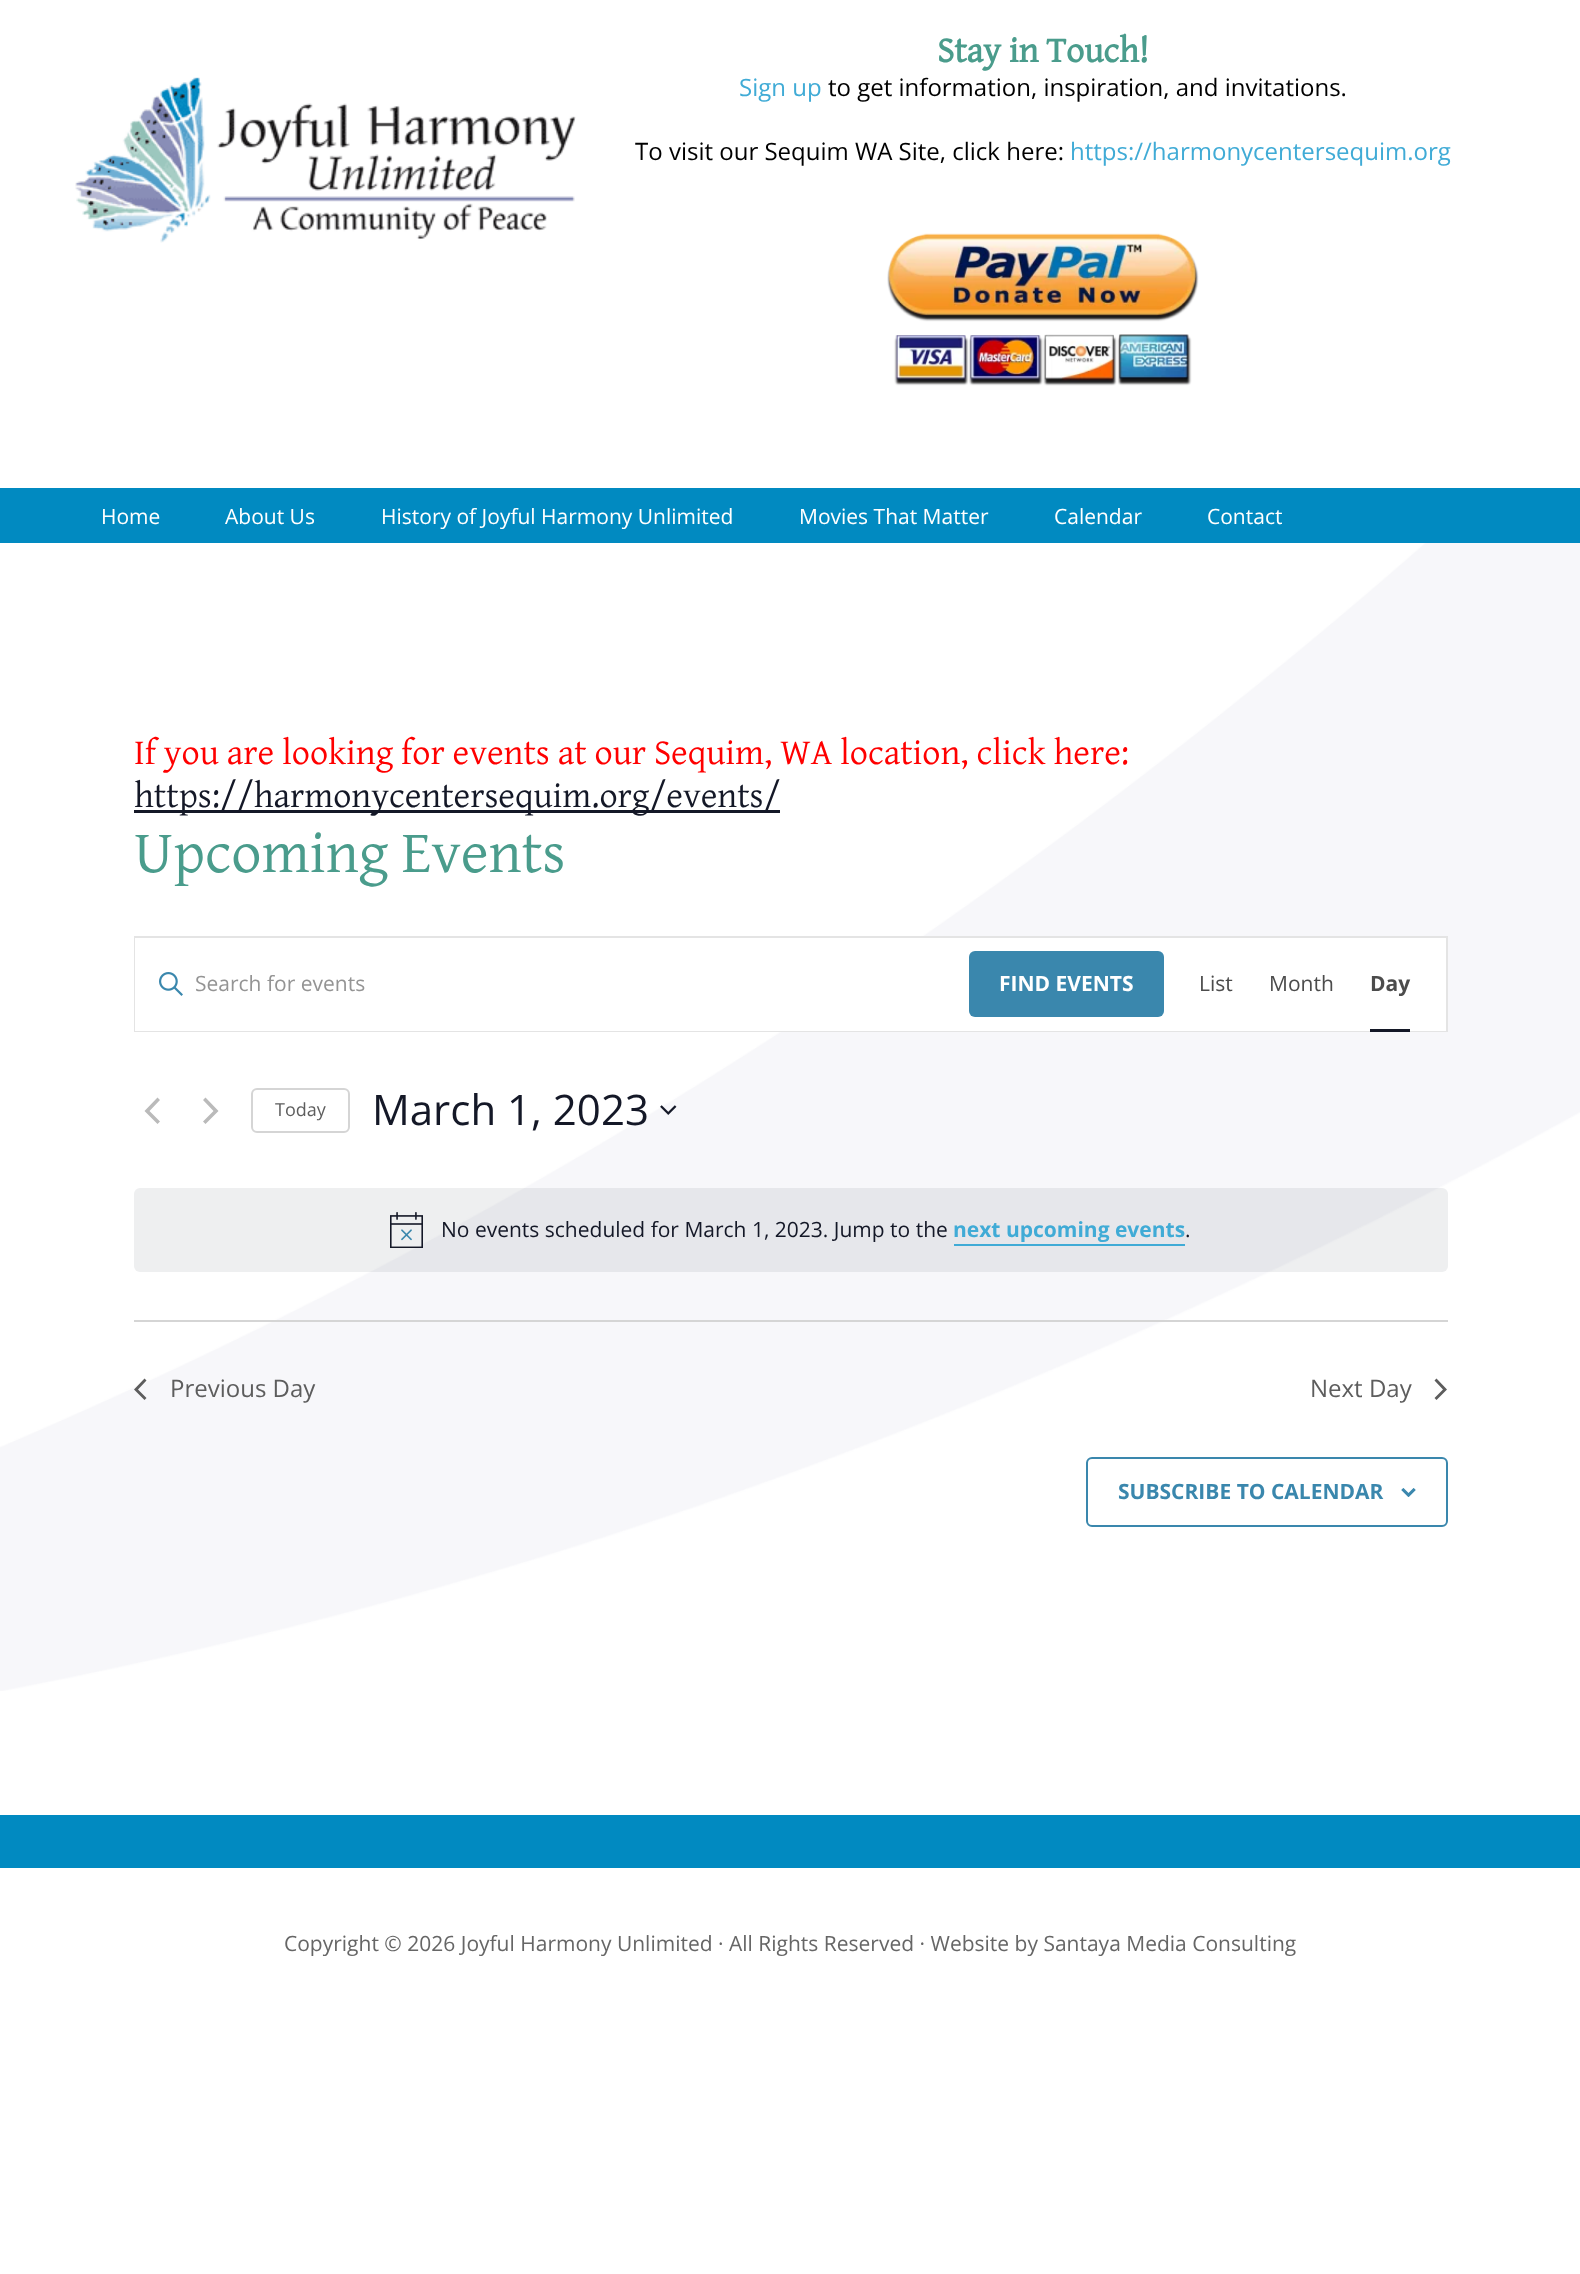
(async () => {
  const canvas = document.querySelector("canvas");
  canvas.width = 1580;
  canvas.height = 2274;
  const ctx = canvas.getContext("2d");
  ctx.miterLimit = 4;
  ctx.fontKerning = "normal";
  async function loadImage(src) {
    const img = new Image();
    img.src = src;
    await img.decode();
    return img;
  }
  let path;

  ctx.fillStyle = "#ffffff";
  ctx.fillRect(0, 0, 1580, 2274);
  ctx.drawImage(await loadImage("img/1.png"), 0, 543, 1580, 1148);
  ctx.drawImage(await loadImage("img/2.png"), 75, 77, 501, 166);
  ctx.drawImage(await loadImage("img/3.png"), 887, 233, 312, 153);
  ctx.fillStyle = "#018ac1";
  ctx.fillRect(0, 488, 1580, 55);
  ctx.fillStyle = "#141827";
  ctx.fillRect(134, 810, 646, 3);
  ctx.strokeStyle = "#e4e4e4";
  ctx.lineWidth = 2;
  ctx.strokeRect(135, 937, 1312, 94);
  ctx.fillStyle = "#ffffff";
  ctx.fillRect(135, 938, 1311, 93);
  ctx.drawImage(await loadImage("img/4.png"), 159, 972, 24, 24);
  ctx.fillStyle = "#3a87ad";
  ctx.beginPath();
  ctx.roundRect(969, 951, 195, 66, 6);
  ctx.fill();
  ctx.fillStyle = "#141827";
  ctx.fillRect(1370, 1029, 40, 3);
  ctx.fillStyle = "#bababa";
  path = new Path2D("M160 1121.5L157.5 1124L144.5 1111L157.5 1097.5L160 1100L149.5 1111Z");
  ctx.fill(path);
  path = new Path2D("M203 1100L205.5 1097.5L218.5 1111L205.5 1124L203 1121.5L213.5 1111Z");
  ctx.fill(path);
  ctx.beginPath();
  ctx.roundRect(252, 1089, 97, 43, 5);
  ctx.strokeStyle = "#d5d5d5";
  ctx.stroke();
  ctx.drawImage(await loadImage("img/5.png"), 660, 1105, 17, 10);
  ctx.fillStyle = "rgba(20, 24, 39, 0.07)";
  ctx.beginPath();
  ctx.roundRect(134, 1188, 1314, 84, 6);
  ctx.fill();
  ctx.drawImage(await loadImage("img/6.png"), 390, 1212, 33, 36);
  ctx.fillStyle = "#40abd6";
  ctx.fillRect(954, 1244, 231, 2);
  ctx.fillStyle = "#d5d5d5";
  ctx.fillRect(134, 1320, 1314, 2);
  ctx.fillStyle = "#5d5d5d";
  path = new Path2D("M146.5 1398L144.5 1400L134 1389.5L144.5 1378.5L146.5 1380.5L138 1389.5Z");
  ctx.fill(path);
  path = new Path2D("M1434.5 1380.5L1436.5 1378.5L1447 1389.5L1436.5 1400L1434.5 1398L1443 1389.5Z");
  ctx.fill(path);
  ctx.beginPath();
  ctx.roundRect(1087, 1458, 360, 68, 5);
  ctx.strokeStyle = "#3a87ad";
  ctx.stroke();
  ctx.drawImage(await loadImage("img/7.png"), 1401, 1488, 15, 9);
  ctx.fillStyle = "#018ac1";
  ctx.fillRect(0, 1815, 1580, 53);
  ctx.font = "bold 36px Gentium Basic";
  ctx.fillStyle = "#4a9c8c";
  ctx.fillText("Stay in Touch!", 937, 62);
  ctx.font = "24px Open Sans";
  ctx.fillStyle = "#40abd6";
  ctx.fillText("Sign up", 739, 96);
  ctx.fillStyle = "#000000";
  ctx.fillText("to get information, inspiration, and invitations.", 828, 96);
  ctx.fillText("To visit our Sequim WA Site, click here:", 635, 160);
  ctx.fillStyle = "#40abd6";
  ctx.fillText("https://harmonycentersequim.org", 1070, 160);
  ctx.font = "21px Open Sans";
  ctx.fillStyle = "#ffffff";
  for (const [text, x, y] of [
    ["Home", 101, 524],
    ["About Us", 225, 524],
    ["History of Joyful Harmony Unlimited", 381, 524],
    ["Movies That Matter", 799, 524],
    ["Calendar", 1054, 524],
    ["Contact", 1207, 524],
  ]) {
    ctx.fillText(text, x, y);
  }
  ctx.font = "36px Gentium Basic";
  ctx.fillStyle = "#ff0000";
  ctx.fillText("If you are looking for events at our Sequim, WA location, click here:", 134, 764);
  ctx.fillStyle = "#141827";
  ctx.fillText("https://harmonycentersequim.org/events/", 134, 807);
  ctx.font = "60px Gentium Basic";
  ctx.fillStyle = "#4a9c8c";
  ctx.fillText("Upcoming Events", 134, 872);
  ctx.font = "21px Open Sans";
  ctx.fillStyle = "#949494";
  ctx.fillText("Search for events", 195, 991);
  ctx.font = "bold 21px Open Sans";
  ctx.fillStyle = "#ffffff";
  ctx.fillText("FIND EVENTS", 999, 991);
  ctx.font = "21px Open Sans";
  ctx.fillStyle = "#4c4c4c";
  ctx.fillText("List", 1199, 991);
  ctx.fillText("Month", 1269, 991);
  ctx.font = "bold 21px Open Sans";
  ctx.fillText("Day", 1370, 991);
  ctx.font = "18px Open Sans";
  ctx.fillStyle = "#5d5d5d";
  ctx.fillText("Today", 275, 1116);
  ctx.font = "42px Open Sans";
  ctx.fillStyle = "#141827";
  ctx.fillText("March 1, 2023", 372, 1125);
  ctx.font = "21px Open Sans";
  ctx.fillText("No events scheduled for March 1, 2023. Jump to the", 441, 1237);
  ctx.font = "bold 21px Open Sans";
  ctx.fillStyle = "#40abd6";
  ctx.fillText("next upcoming events", 953, 1237);
  ctx.font = "21px Open Sans";
  ctx.fillStyle = "#141827";
  ctx.fillText(".", 1185, 1237);
  ctx.font = "24px Open Sans";
  ctx.fillStyle = "#5d5d5d";
  ctx.fillText("Previous Day", 170, 1397);
  ctx.fillText("Next Day", 1310, 1397);
  ctx.font = "bold 21px Open Sans";
  ctx.fillStyle = "#3a87ad";
  ctx.fillText("SUBSCRIBE TO CALENDAR", 1118, 1499);
  ctx.font = "21px Open Sans";
  ctx.fillStyle = "#666666";
  ctx.fillText("Copyright © 2026 Joyful Harmony Unlimited · All Rights Reserved · Website by Santaya Media Consulting", 284, 1951);
})();
